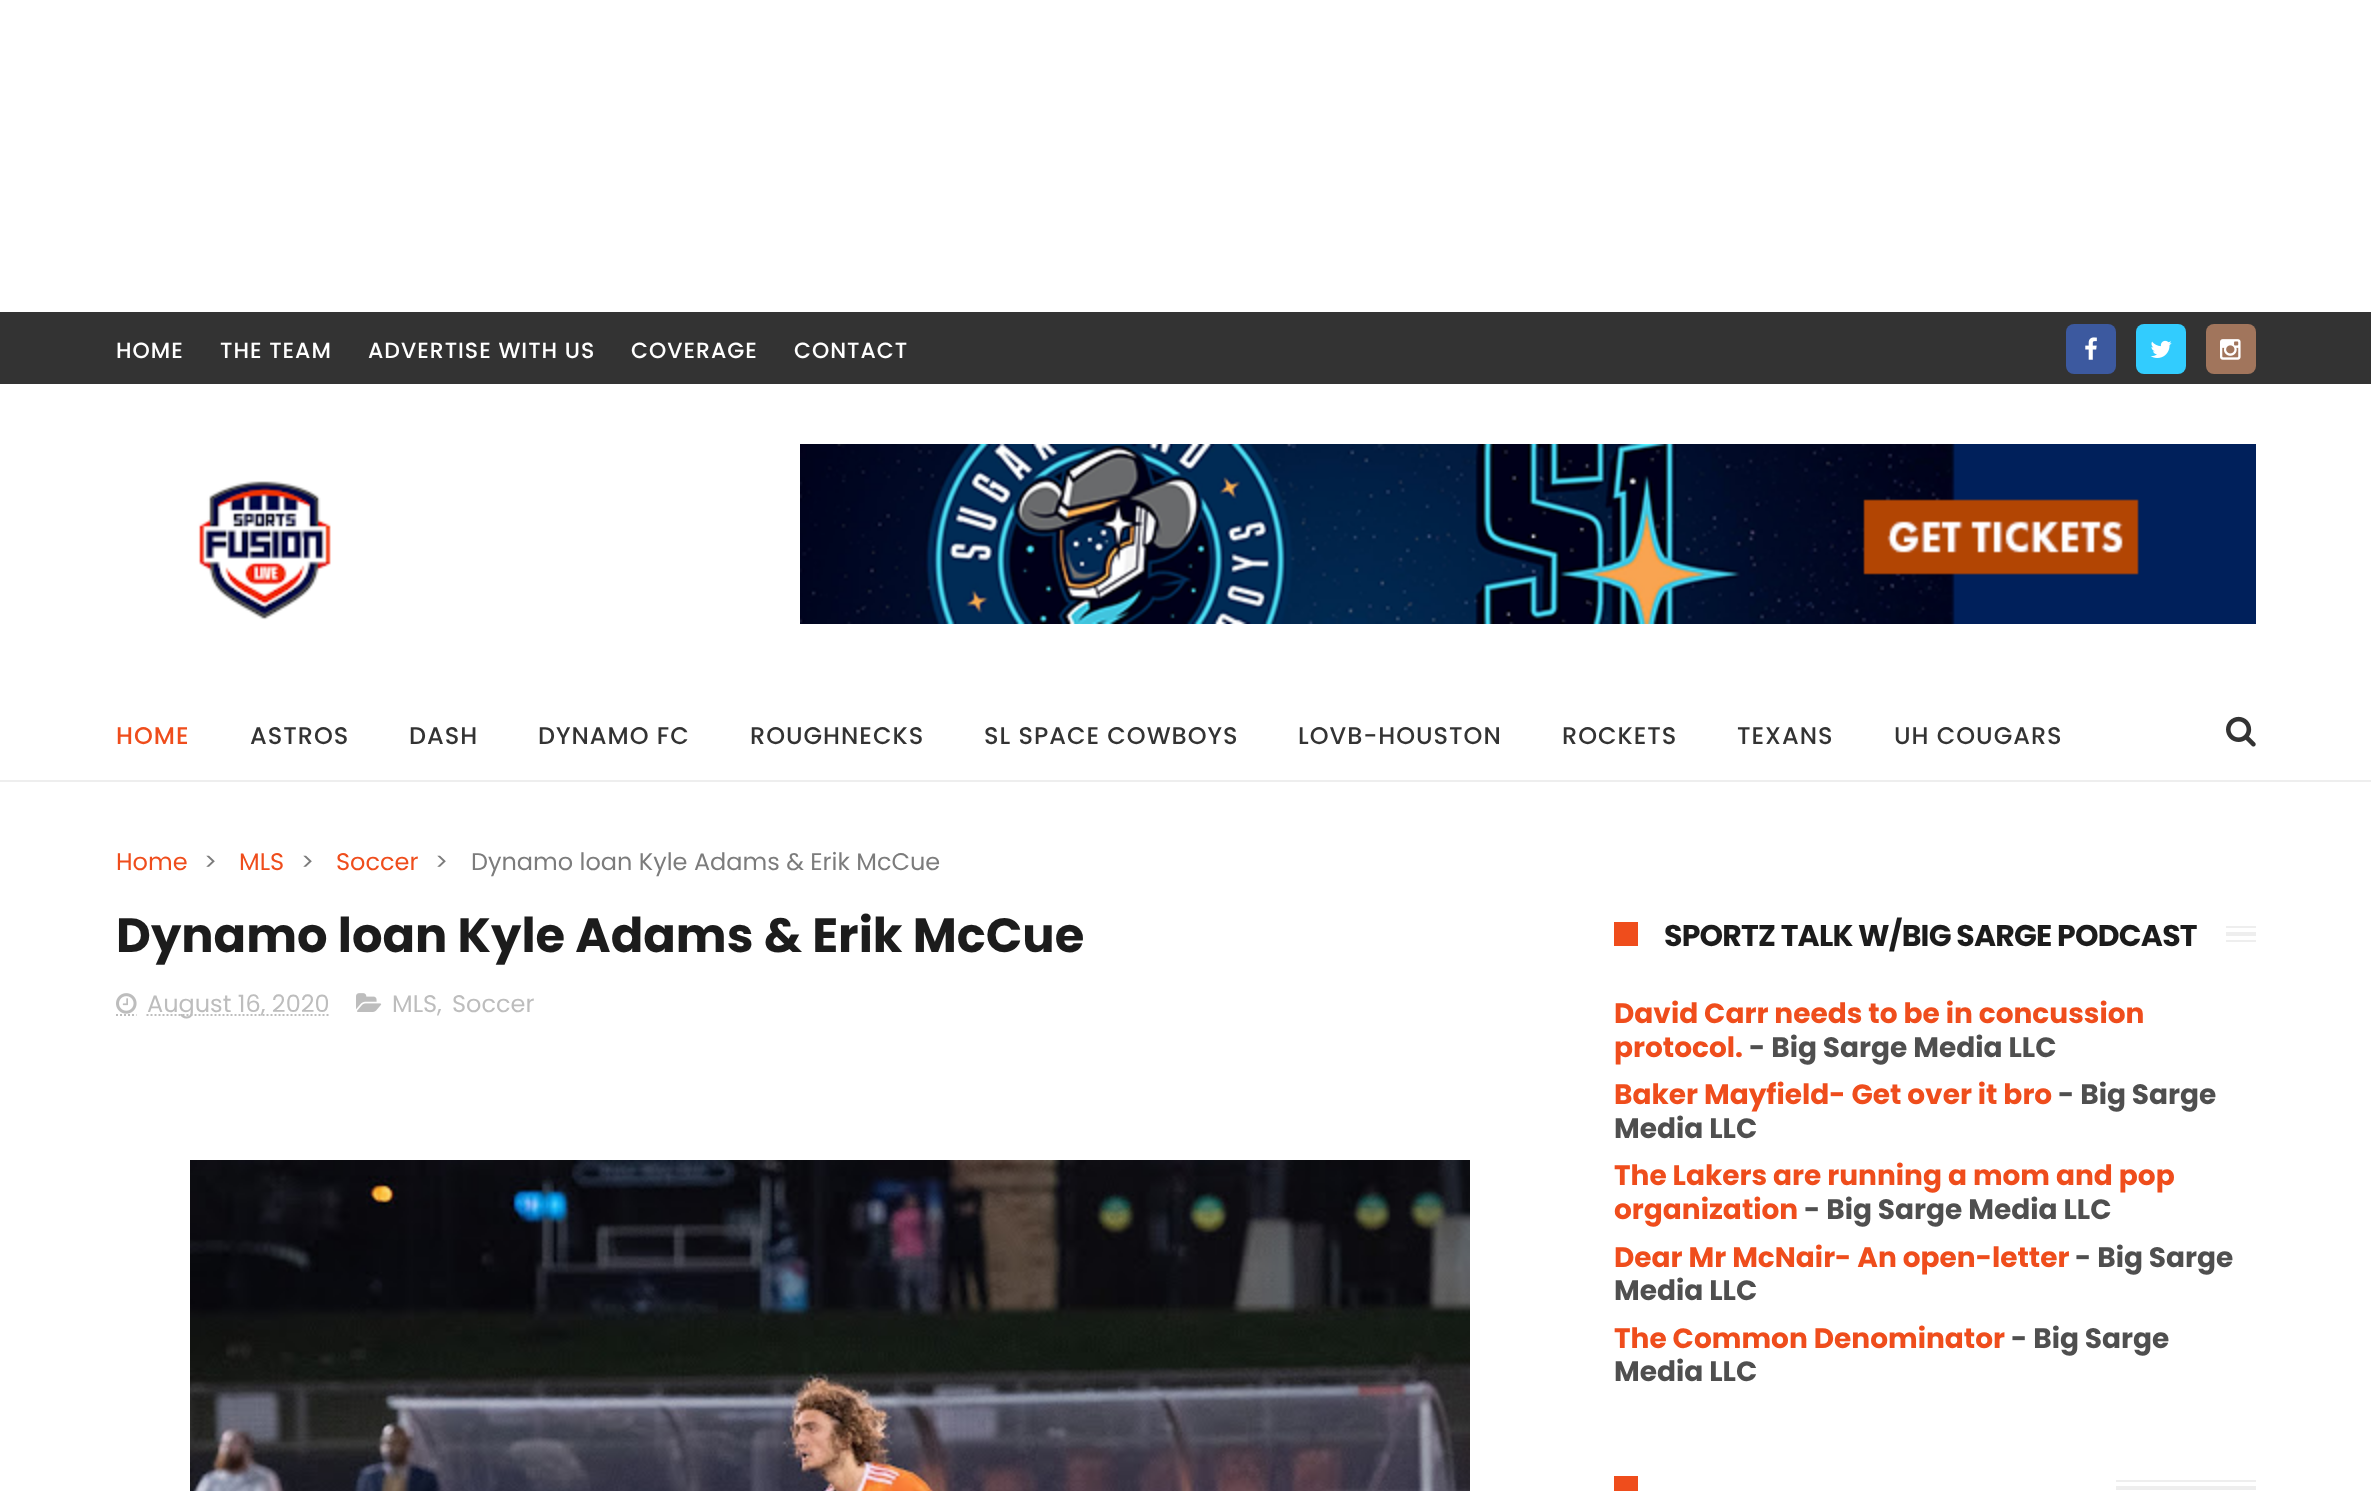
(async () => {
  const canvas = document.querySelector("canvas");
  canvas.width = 2371;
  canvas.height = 1491;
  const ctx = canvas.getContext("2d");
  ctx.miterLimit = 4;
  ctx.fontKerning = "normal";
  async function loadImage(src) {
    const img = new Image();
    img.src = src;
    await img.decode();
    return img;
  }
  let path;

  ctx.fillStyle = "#ffffff";
  ctx.fillRect(0, 0, 2371, 1491);
  ctx.fillStyle = "#333333";
  ctx.fillRect(0, 312, 2371, 72);
  ctx.fillStyle = "#3c599f";
  ctx.beginPath();
  ctx.roundRect(2066, 324, 50, 50, 8);
  ctx.fill();
  ctx.drawImage(await loadImage("img/1.png"), 2085, 337, 12, 23);
  ctx.fillStyle = "#32ccfe";
  ctx.beginPath();
  ctx.roundRect(2136, 324, 50, 50, 8);
  ctx.fill();
  ctx.drawImage(await loadImage("img/2.png"), 2150, 340, 22, 18);
  ctx.fillStyle = "#a1755c";
  ctx.beginPath();
  ctx.roundRect(2206, 324, 50, 50, 8);
  ctx.fill();
  ctx.drawImage(await loadImage("img/3.png"), 2220, 339, 21, 21);
  ctx.drawImage(await loadImage("img/4.png"), 198, 481, 133, 139);
  ctx.drawImage(await loadImage("img/5.png"), 800, 444, 1456, 180);
  ctx.fillStyle = "#eeeeee";
  ctx.fillRect(0, 780, 2371, 2);
  ctx.drawImage(await loadImage("img/6.png"), 2226, 716, 30, 31);
  ctx.drawImage(await loadImage("img/7.png"), 116, 993, 21, 21);
  path = new Path2D("M116 1015H136.5");
  ctx.strokeStyle = "#bdbdbd";
  ctx.lineWidth = 2;
  ctx.setLineDash([2, 2]);
  ctx.stroke(path);
  path = new Path2D("M146.5 1015H329");
  ctx.stroke(path);
  ctx.drawImage(await loadImage("img/8.png"), 356, 993, 26, 19);
  ctx.drawImage(await loadImage("img/9.png"), 190, 1160, 1280, 331);
  ctx.save();
  ctx.beginPath();
  ctx.rect(1614, 902, 642, 494);
  ctx.clip();
  ctx.strokeStyle = "#eeeeee";
  ctx.setLineDash([]);
  ctx.strokeRect(1615, 927, 656, 14);
  ctx.restore();
  for (const [x, y, w, h, color] of [
    [1614, 926, 612, 16, "#ffffff"],
    [1614, 922, 24, 24, "#ef4d1c"],
    [2226, 932, 30, 4, "#eeeeee"],
  ]) {
    ctx.fillStyle = color;
    ctx.fillRect(x, y, w, h);
  }
  ctx.save();
  ctx.beginPath();
  ctx.rect(1614, 1456, 642, 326);
  ctx.clip();
  ctx.strokeStyle = "#eeeeee";
  ctx.setLineDash([]);
  ctx.strokeRect(1615, 1481, 656, 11);
  ctx.restore();
  for (const [x, y, w, h, color] of [
    [1614, 1480, 502, 11, "#ffffff"],
    [1614, 1476, 24, 15, "#ef4d1c"],
    [2116, 1486, 140, 4, "#eeeeee"],
  ]) {
    ctx.fillStyle = color;
    ctx.fillRect(x, y, w, h);
  }
  ctx.letterSpacing = "1px";
  ctx.font = "500 22px Poppins";
  ctx.fillStyle = "#ffffff";
  for (const [text, x, y] of [
    ["HOME", 116, 358],
    ["THE TEAM", 220, 358],
    ["ADVERTISE WITH US", 368, 358],
    ["COVERAGE", 631, 358],
    ["CONTACT", 794, 358],
  ]) {
    ctx.fillText(text, x, y);
  }
  ctx.font = "500 24px Poppins";
  ctx.fillStyle = "#ef4d1c";
  ctx.fillText("HOME", 116, 744);
  ctx.fillStyle = "#333333";
  for (const [text, x, y] of [
    ["ASTROS", 250, 744],
    ["DASH", 409, 744],
    ["DYNAMO FC", 538, 744],
    ["ROUGHNECKS", 750, 744],
    ["SL SPACE COWBOYS", 984, 744],
    ["LOVB-HOUSTON", 1298, 744],
    ["ROCKETS", 1562, 744],
    ["TEXANS", 1737, 744],
    ["UH COUGARS", 1894, 744],
  ]) {
    ctx.fillText(text, x, y);
  }
  ctx.letterSpacing = "0px";
  ctx.font = "24px Poppins";
  ctx.fillStyle = "#ef4d1c";
  ctx.fillText("Home", 116, 870);
  ctx.fillStyle = "#7c7c7c";
  ctx.fillText(">", 204, 870);
  ctx.fillStyle = "#ef4d1c";
  ctx.fillText("MLS", 239, 870);
  ctx.fillStyle = "#7c7c7c";
  ctx.fillText(">", 301, 870);
  ctx.fillStyle = "#ef4d1c";
  ctx.fillText("Soccer", 336, 870);
  ctx.fillStyle = "#7c7c7c";
  ctx.fillText(">", 435, 870);
  ctx.fillText("Dynamo loan Kyle Adams & Erik McCue", 471, 870);
  ctx.font = "bold 48px Poppins";
  ctx.fillStyle = "#1c1c1c";
  ctx.fillText("Dynamo loan Kyle Adams & Erik McCue", 116, 952);
  ctx.font = "24px Poppins";
  ctx.fillStyle = "#bdbdbd";
  for (const [text, x, y] of [
    ["August 16, 2020", 147, 1012],
    ["MLS,", 392, 1012],
    ["Soccer", 452, 1012],
  ]) {
    ctx.fillText(text, x, y);
  }
  ctx.letterSpacing = "-0.8px";
  ctx.font = "bold 30px Poppins";
  ctx.fillStyle = "#1c1c1c";
  ctx.fillText("SPORTZ TALK W/BIG SARGE PODCAST", 1664, 946);
  ctx.letterSpacing = "0px";
  ctx.font = "bold 28px Poppins";
  ctx.fillStyle = "#ef4d1c";
  ctx.fillText("David Carr needs to be in concussion", 1614, 1023);
  ctx.fillText("protocol.", 1614, 1057);
  ctx.fillStyle = "#4f4f4f";
  ctx.fillText("- Big Sarge Media LLC", 1749, 1057);
  ctx.fillStyle = "#ef4d1c";
  ctx.fillText("Baker Mayfield- Get over it bro", 1614, 1104);
  ctx.fillStyle = "#4f4f4f";
  ctx.fillText("- Big Sarge", 2058, 1104);
  ctx.fillText("Media LLC", 1614, 1138);
  ctx.fillStyle = "#ef4d1c";
  ctx.fillText("The Lakers are running a mom and pop", 1614, 1185);
  ctx.fillText("organization", 1614, 1219);
  ctx.fillStyle = "#4f4f4f";
  ctx.fillText("- Big Sarge Media LLC", 1804, 1219);
  ctx.fillStyle = "#ef4d1c";
  ctx.fillText("Dear Mr McNair- An open-letter", 1614, 1267);
  ctx.fillStyle = "#4f4f4f";
  ctx.fillText("- Big Sarge", 2075, 1267);
  ctx.fillText("Media LLC", 1614, 1300);
  ctx.fillStyle = "#ef4d1c";
  ctx.fillText("The Common Denominator", 1614, 1348);
  ctx.fillStyle = "#4f4f4f";
  ctx.fillText("- Big Sarge", 2011, 1348);
  ctx.fillText("Media LLC", 1614, 1381);
})();
